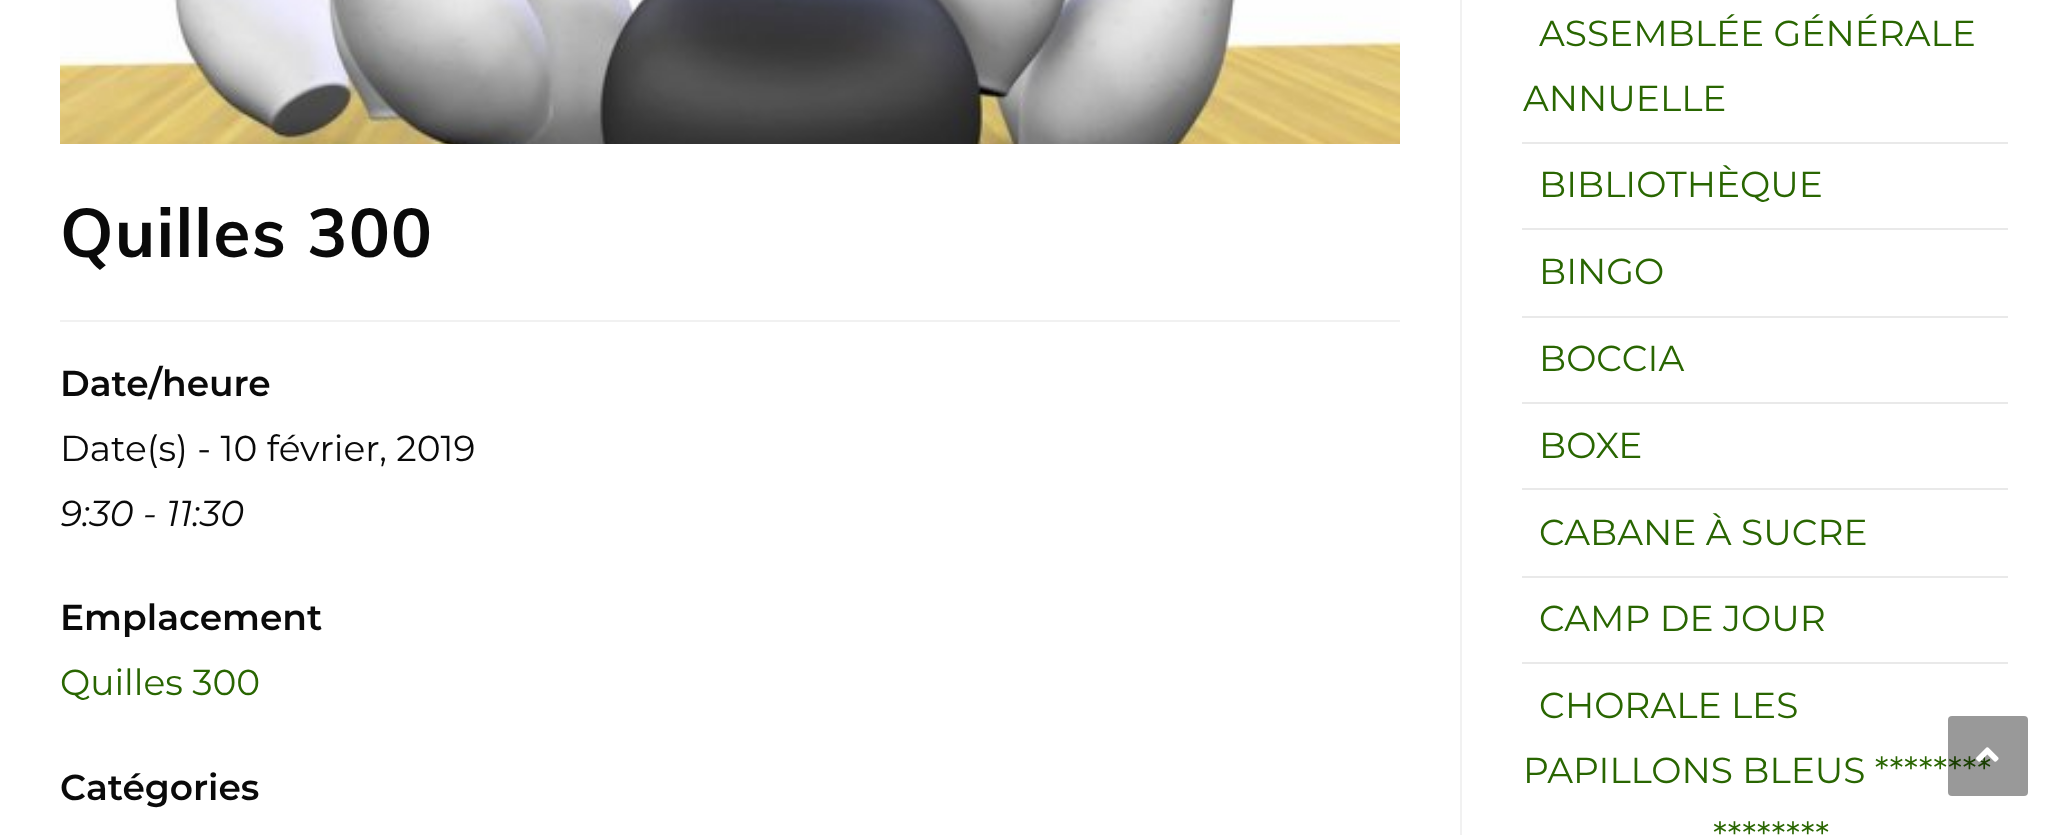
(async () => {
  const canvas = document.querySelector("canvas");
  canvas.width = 2068;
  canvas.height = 835;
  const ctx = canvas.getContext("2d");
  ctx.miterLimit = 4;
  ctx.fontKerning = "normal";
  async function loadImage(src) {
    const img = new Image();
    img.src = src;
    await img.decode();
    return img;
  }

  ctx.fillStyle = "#ffffff";
  ctx.fillRect(0, 0, 2068, 835);
  ctx.fillStyle = "#f1f1f1";
  ctx.fillRect(1460, 0, 2, 835);
  ctx.drawImage(await loadImage("img/1.png"), 60, 0, 1340, 144);
  for (const [x, y, w, h, color] of [
    [60, 320, 1340, 2, "#f1f1f1"],
    [1522, 142, 486, 2, "#e9e9e9"],
    [1522, 228, 486, 2, "#e9e9e9"],
    [1522, 316, 486, 2, "#e9e9e9"],
    [1522, 402, 486, 2, "#e9e9e9"],
    [1522, 488, 486, 2, "#e9e9e9"],
    [1522, 576, 486, 2, "#e9e9e9"],
    [1522, 662, 486, 2, "#e9e9e9"],
  ]) {
    ctx.fillStyle = color;
    ctx.fillRect(x, y, w, h);
  }
  ctx.letterSpacing = "1.25px";
  ctx.font = "bold 68px Muli";
  ctx.fillStyle = "#0a0a0a";
  ctx.fillText("Quilles 300", 60, 257);
  ctx.letterSpacing = "0px";
  ctx.font = "100 36px 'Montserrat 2'";
  ctx.fillText("Date/heure", 60, 396);
  ctx.font = "100 36px Montserrat";
  ctx.fillText("Date(s) - 10 février, 2019", 60, 461);
  ctx.font = "italic 100 36px Montserrat";
  ctx.fillText("9:30 - 11:30", 60, 526);
  ctx.font = "100 36px 'Montserrat 2'";
  ctx.fillText("Emplacement", 60, 630);
  ctx.font = "100 36px Montserrat";
  ctx.fillStyle = "#296601";
  ctx.fillText("Quilles 300", 60, 695);
  ctx.font = "100 36px 'Montserrat 2'";
  ctx.fillStyle = "#0a0a0a";
  ctx.fillText("Catégories", 60, 800);
  ctx.font = "100 36px Montserrat";
  ctx.fillStyle = "#296601";
  for (const [text, x, y] of [
    ["ASSEMBLÉE GÉNÉRALE", 1539, 46],
    ["ANNUELLE", 1523, 111],
    ["BIBLIOTHÈQUE", 1539, 197],
    ["BINGO", 1539, 284],
    ["BOCCIA", 1539, 371],
    ["BOXE", 1539, 458],
    ["CABANE À SUCRE", 1539, 545],
    ["CAMP DE JOUR", 1539, 631],
    ["CHORALE LES", 1539, 718],
    ["PAPILLONS BLEUS ********", 1523, 783],
    ["********", 1713, 848],
  ]) {
    ctx.fillText(text, x, y);
  }
  ctx.fillStyle = "rgba(0, 0, 0, 0.4)";
  ctx.beginPath();
  ctx.roundRect(1948, 716, 80, 80, 4);
  ctx.fill();
  ctx.drawImage(await loadImage("img/2.png"), 1976, 747, 23, 15);
})();
